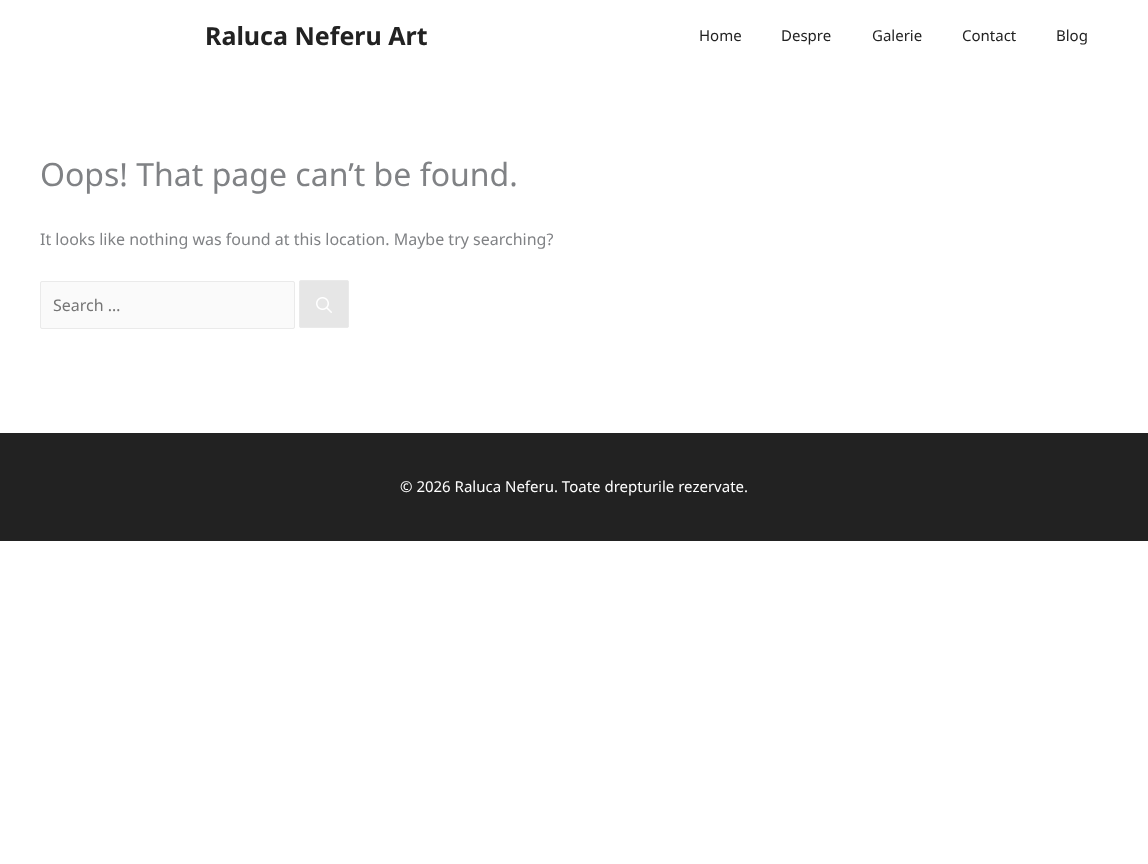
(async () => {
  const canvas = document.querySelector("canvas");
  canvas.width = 1148;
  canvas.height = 864;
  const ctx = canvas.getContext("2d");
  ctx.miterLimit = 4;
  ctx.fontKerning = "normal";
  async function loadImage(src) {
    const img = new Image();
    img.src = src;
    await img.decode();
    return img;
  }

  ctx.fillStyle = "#ffffff";
  ctx.fillRect(0, 0, 1148, 864);
  ctx.fillStyle = "#fafafa";
  ctx.beginPath();
  ctx.roundRect(40.5, 281.5, 254, 47, 1.5);
  ctx.fill();
  ctx.strokeStyle = "#eaeaea";
  ctx.stroke();
  ctx.fillStyle = "#e6e6e6";
  ctx.beginPath();
  ctx.roundRect(299.5, 280.5, 49, 47, 1.5);
  ctx.fill();
  ctx.stroke();
  ctx.drawImage(await loadImage("img/1.png"), 316, 297, 16, 16);
  ctx.fillStyle = "#222222";
  ctx.fillRect(0, 433, 1148, 108);
  ctx.font = "bold 25px Noto Sans";
  ctx.fillText("Raluca Neferu Art", 205, 45);
  ctx.font = "15px Noto Sans";
  for (const [text, x, y] of [
    ["Home", 699, 41],
    ["Despre", 781, 41],
    ["Galerie", 872, 41],
    ["Contact", 962, 41],
    ["Blog", 1056, 41],
  ]) {
    ctx.fillText(text, x, y);
  }
  ctx.font = "32px Noto Sans";
  ctx.fillStyle = "#808285";
  ctx.fillText("Oops! That page can’t be found.", 40, 186);
  ctx.font = "16px Noto Sans";
  ctx.fillText("It looks like nothing was found at this location. Maybe try searching?", 40, 245);
  ctx.fillStyle = "#757575";
  ctx.fillText("Search …", 53, 311);
  ctx.font = "15px Noto Sans";
  ctx.fillStyle = "#ffffff";
  ctx.fillText("© 2026 Raluca Neferu. Toate drepturile rezervate.", 400, 492);
})();
